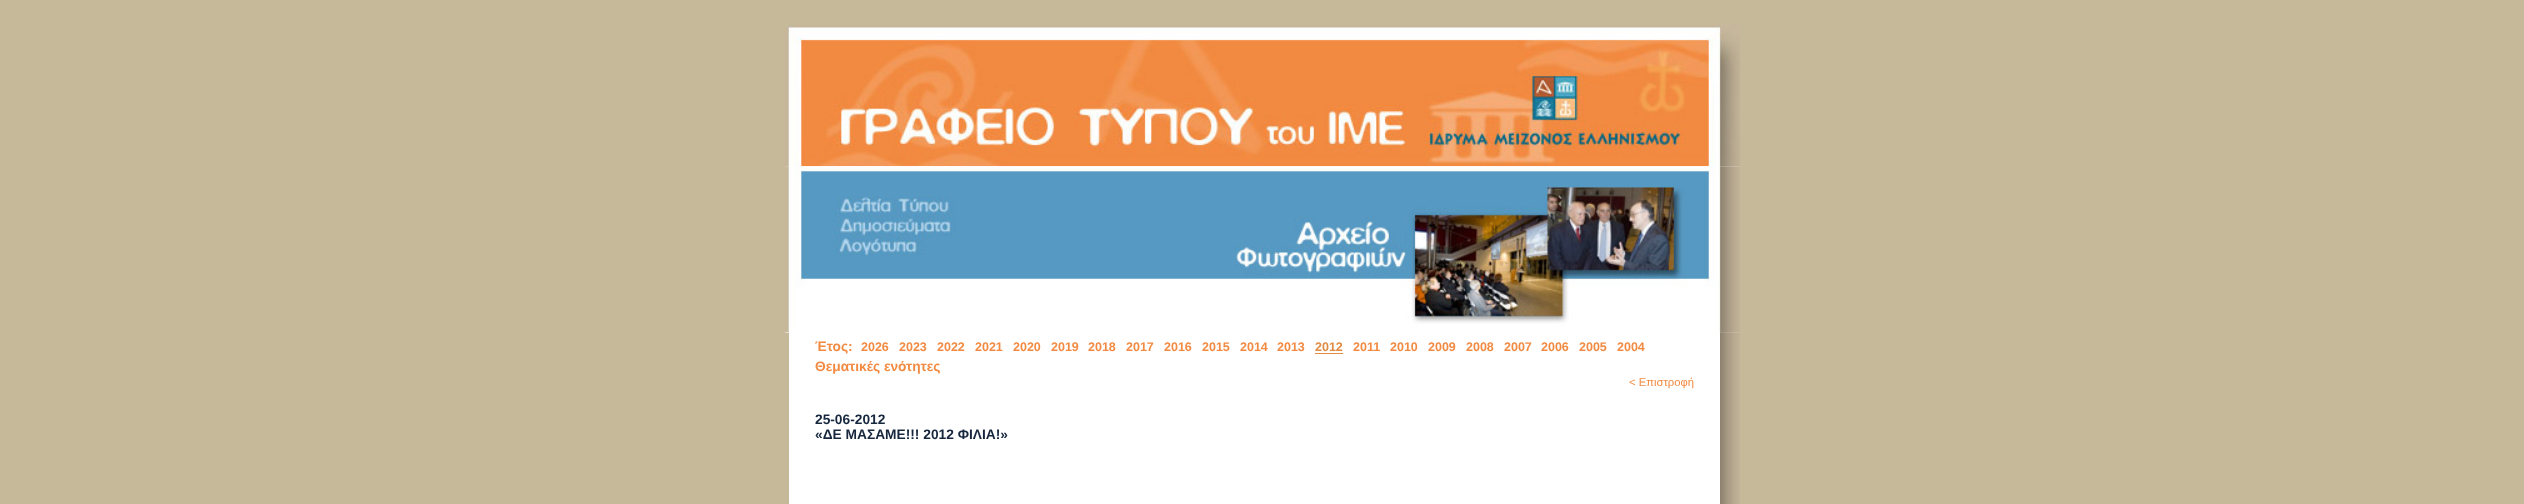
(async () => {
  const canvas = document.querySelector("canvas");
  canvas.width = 2524;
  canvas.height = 504;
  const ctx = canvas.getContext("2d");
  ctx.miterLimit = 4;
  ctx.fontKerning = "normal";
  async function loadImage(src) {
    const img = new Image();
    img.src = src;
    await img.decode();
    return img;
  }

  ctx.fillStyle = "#c6b999";
  ctx.fillRect(0, 0, 2524, 504);
  ctx.fillStyle = "#ffffff";
  ctx.fillRect(785, 166, 955, 167);
  ctx.drawImage(await loadImage("img/1.png"), 785, 25, 955, 142);
  ctx.drawImage(await loadImage("img/3.png"), 1720, 332, 20, 172);
  ctx.drawImage(await loadImage("img/2.png"), 785, 166, 955, 167);
  ctx.fillRect(789, 333, 931, 171);
  ctx.fillStyle = "#e18a41";
  ctx.fillRect(1315, 353, 28, 1);
  ctx.drawImage(await loadImage("img/4.png"), 1720, 332, 20, 1);
  ctx.font = "bold 13.75px Liberation Sans";
  ctx.fillStyle = "#f28a41";
  ctx.fillText("Έτος:", 815, 351);
  ctx.font = "bold 12.5px Liberation Sans";
  for (const [text, x, y] of [
    ["2026", 861, 351],
    ["2023", 899, 351],
    ["2022", 937, 351],
    ["2021", 975, 351],
    ["2020", 1013, 351],
    ["2019", 1051, 351],
    ["2018", 1088, 351],
    ["2017", 1126, 351],
    ["2016", 1164, 351],
    ["2015", 1202, 351],
    ["2014", 1240, 351],
    ["2013", 1277, 351],
  ]) {
    ctx.fillText(text, x, y);
  }
  ctx.fillStyle = "#e18a41";
  ctx.fillText("2012", 1315, 351);
  ctx.fillStyle = "#f28a41";
  for (const [text, x, y] of [
    ["2011", 1353, 351],
    ["2010", 1390, 351],
    ["2009", 1428, 351],
    ["2008", 1466, 351],
    ["2007", 1504, 351],
    ["2006", 1541, 351],
    ["2005", 1579, 351],
    ["2004", 1617, 351],
  ]) {
    ctx.fillText(text, x, y);
  }
  ctx.font = "bold 13.75px Liberation Sans";
  ctx.fillText("Θεματικές ενότητες", 815, 371);
  ctx.font = "11.25px Liberation Sans";
  ctx.fillText("< Επιστροφή", 1629, 386);
  ctx.font = "bold 13.75px Liberation Sans";
  ctx.fillStyle = "#17273e";
  ctx.fillText("25-06-2012", 815, 424);
  ctx.fillText("«ΔΕ ΜΑΣΑΜΕ!!! 2012 ΦΙΛΙΑ!»", 815, 439);
})();
